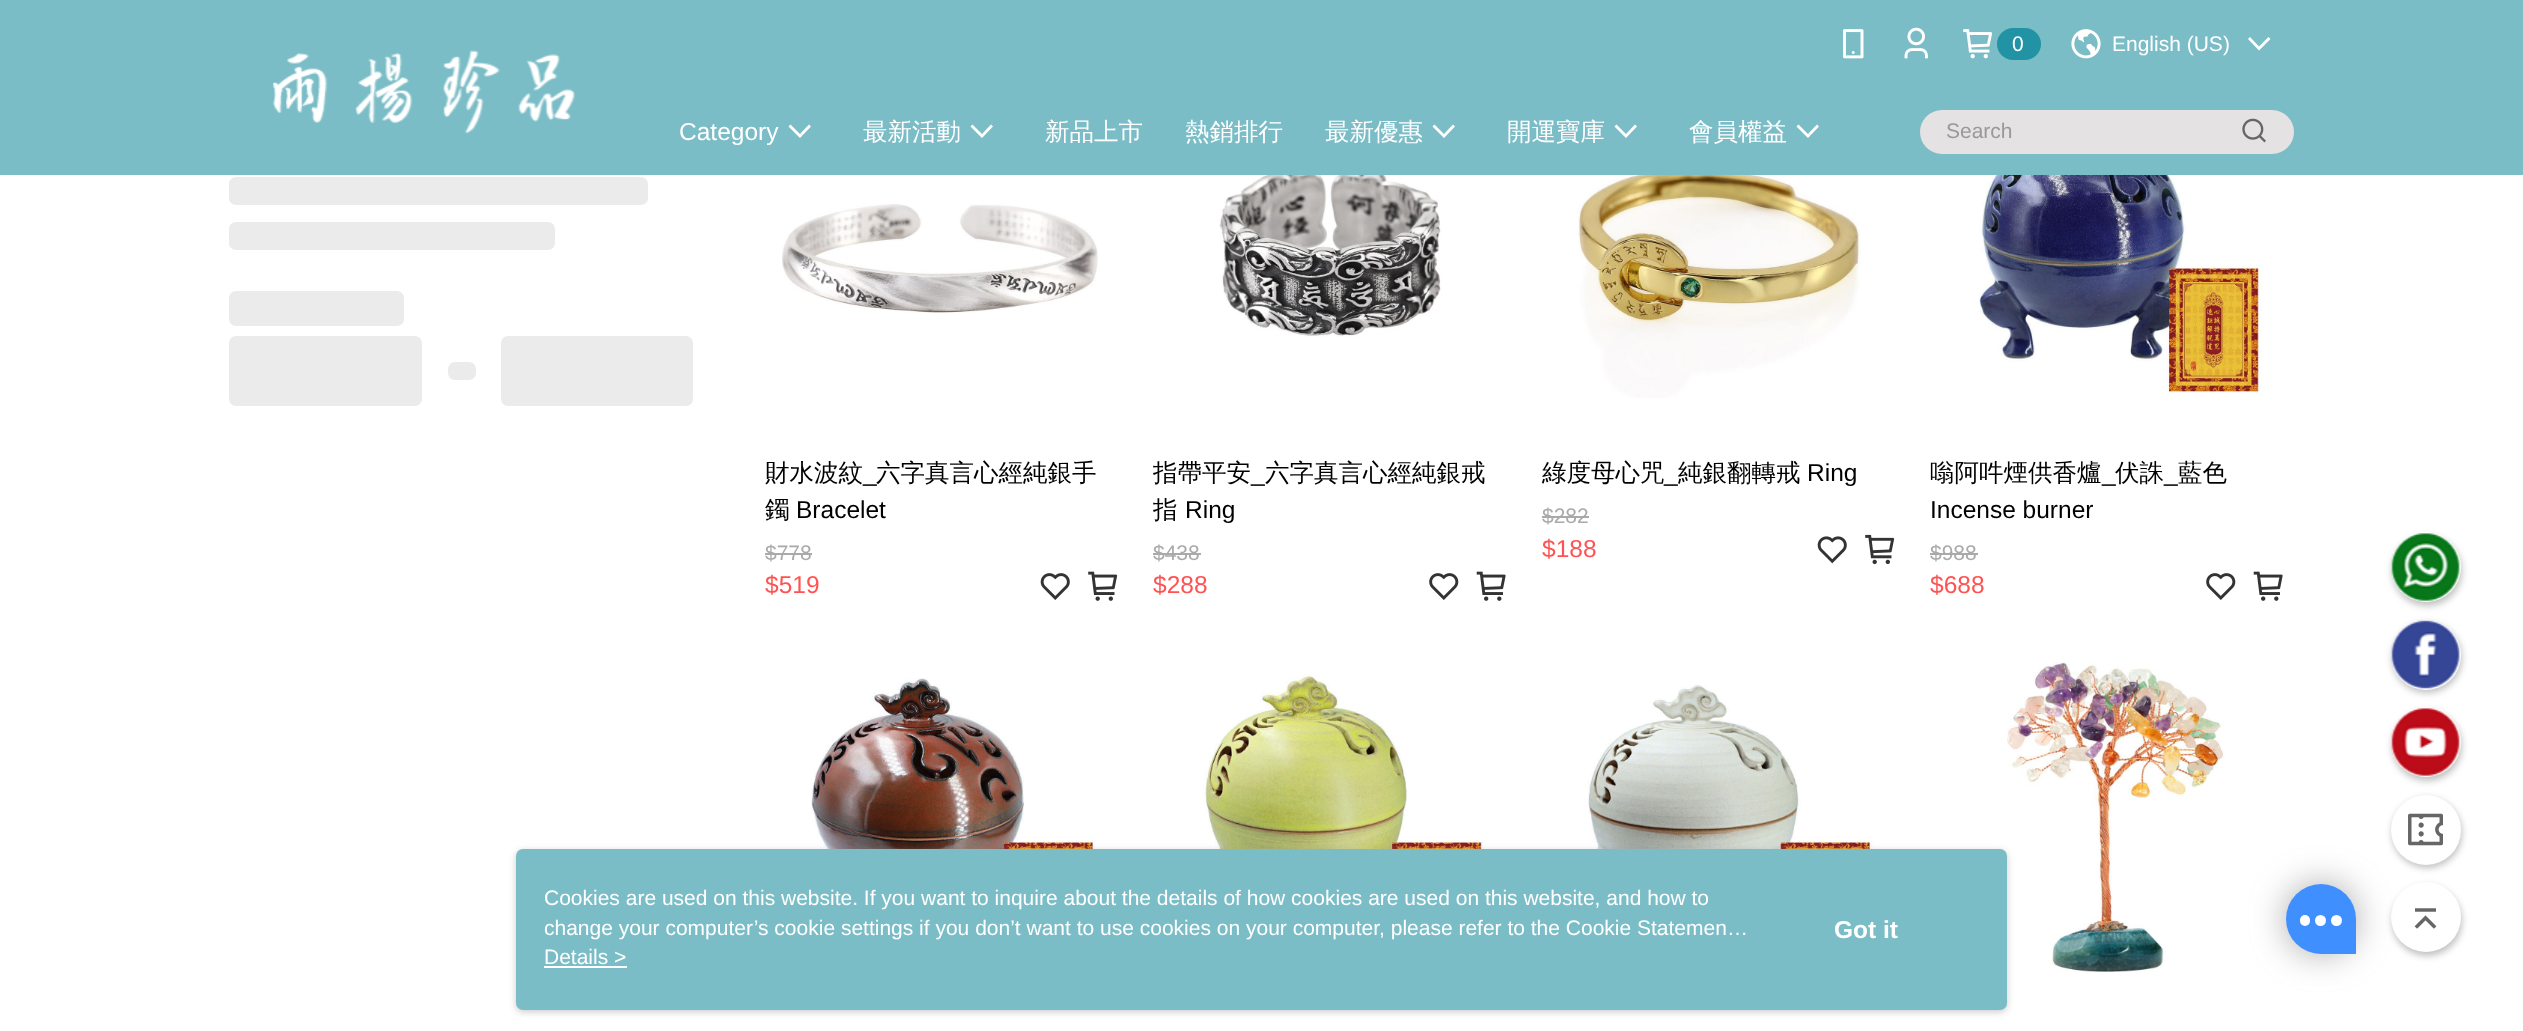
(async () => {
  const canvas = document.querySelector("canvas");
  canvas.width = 2523;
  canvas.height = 1031;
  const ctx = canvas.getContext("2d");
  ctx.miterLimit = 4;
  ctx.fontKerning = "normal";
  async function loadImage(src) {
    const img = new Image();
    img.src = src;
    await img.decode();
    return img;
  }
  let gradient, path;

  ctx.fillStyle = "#ffffff";
  ctx.fillRect(0, 0, 2523, 1031);
  ctx.fillStyle = "#7bbdc6";
  ctx.fillRect(0, 0, 2523, 175);
  ctx.drawImage(await loadImage("img/1.png"), 273, 50, 302, 84);
  ctx.drawImage(await loadImage("img/2.png"), 1843, 29, 21, 30);
  ctx.drawImage(await loadImage("img/3.png"), 1904, 27, 24, 32);
  ctx.drawImage(await loadImage("img/4.png"), 1963, 29, 30, 30);
  ctx.fillStyle = "#2193a5";
  ctx.beginPath();
  ctx.roundRect(1997, 28, 44, 32, 16);
  ctx.fill();
  ctx.drawImage(await loadImage("img/5.png"), 2071, 29, 30, 30);
  ctx.fillStyle = "#ffffff";
  path = new Path2D("M2250 37L2248 39L2259 50.5L2270.5 39L2268.5 37L2259 46.5Z");
  ctx.fill(path);
  path = new Path2D("M790.5 124.5L788.5 126.5L800 138L811 126.5L809 124.5L800 134Z");
  ctx.fill(path);
  path = new Path2D("M972.5 124.5L970.5 126.5L982 138L993 126.5L991 124.5L982 134Z");
  ctx.fill(path);
  path = new Path2D("M1434.5 124.5L1432.5 126.5L1444 138L1455 126.5L1453 124.5L1444 134Z");
  ctx.fill(path);
  path = new Path2D("M1616.5 124.5L1614.5 126.5L1626 138L1637 126.5L1635 124.5L1626 134Z");
  ctx.fill(path);
  path = new Path2D("M1798.5 124.5L1796.5 126.5L1808 138L1819 126.5L1817 124.5L1808 134Z");
  ctx.fill(path);
  ctx.fillStyle = "#e4e2e2";
  ctx.beginPath();
  ctx.roundRect(1920, 110, 374, 44, 22);
  ctx.fill();
  ctx.drawImage(await loadImage("img/6.png"), 2242, 118, 24, 25);
  ctx.fillStyle = "rgba(0, 0, 0, 0.25)";
  ctx.filter = "blur(3.5px)";
  ctx.beginPath();
  ctx.roundRect(2392, 536, 70, 70, 35);
  ctx.fill();
  ctx.filter = "none";
  ctx.fillStyle = "#ffffff";
  ctx.beginPath();
  ctx.arc(2426, 567, 35, 0, Math.PI * 2);
  ctx.fill();
  ctx.drawImage(await loadImage("img/7.png"), 2391, 533, 69, 68);
  ctx.fillStyle = "rgba(0, 0, 0, 0.25)";
  ctx.filter = "blur(3.5px)";
  ctx.beginPath();
  ctx.roundRect(2392, 623, 70, 70, 35);
  ctx.fill();
  ctx.filter = "none";
  ctx.fillStyle = "#ffffff";
  ctx.beginPath();
  ctx.arc(2426, 655, 35, 0, Math.PI * 2);
  ctx.fill();
  ctx.drawImage(await loadImage("img/8.png"), 2391, 620, 69, 69);
  ctx.fillStyle = "rgba(0, 0, 0, 0.25)";
  ctx.filter = "blur(3.5px)";
  ctx.beginPath();
  ctx.roundRect(2392, 711, 70, 70, 35);
  ctx.fill();
  ctx.filter = "none";
  ctx.fillStyle = "#ffffff";
  ctx.beginPath();
  ctx.arc(2426, 742, 35, 0, Math.PI * 2);
  ctx.fill();
  ctx.drawImage(await loadImage("img/9.png"), 2391, 708, 69, 68);
  ctx.fillStyle = "rgba(0, 0, 0, 0.25)";
  ctx.filter = "blur(3.5px)";
  ctx.beginPath();
  ctx.roundRect(2392, 798, 70, 70, 35);
  ctx.fill();
  ctx.filter = "none";
  ctx.fillStyle = "#ffffff";
  ctx.beginPath();
  ctx.arc(2426, 830, 35, 0, Math.PI * 2);
  ctx.fill();
  ctx.drawImage(await loadImage("img/10.png"), 2408, 813, 35, 33);
  ctx.fillStyle = "rgba(0, 0, 0, 0.25)";
  ctx.filter = "blur(3.5px)";
  ctx.beginPath();
  ctx.roundRect(2392, 886, 70, 70, 35);
  ctx.fill();
  ctx.filter = "none";
  ctx.fillStyle = "#ffffff";
  ctx.beginPath();
  ctx.arc(2426, 917, 35, 0, Math.PI * 2);
  ctx.fill();
  ctx.drawImage(await loadImage("img/11.png"), 2414, 908, 23, 21);
  ctx.fillStyle = "#ebebeb";
  ctx.beginPath();
  ctx.roundRect(229, 177, 419, 28, 7);
  ctx.fill();
  ctx.save();
  ctx.beginPath();
  ctx.roundRect(229, 177, 419, 28, 7);
  ctx.clip();
  gradient = ctx.createLinearGradient(-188, 191, 230, 191);
  gradient.addColorStop(0, "#ebebeb");
  gradient.addColorStop(0.5, "#f5f5f5");
  gradient.addColorStop(1, "#ebebeb");
  ctx.fillStyle = gradient;
  ctx.fillRect(229, 177, 2, 28);
  ctx.restore();
  ctx.beginPath();
  ctx.roundRect(229, 222, 326, 28, 7);
  ctx.fill();
  ctx.save();
  ctx.beginPath();
  ctx.roundRect(229, 222, 326, 28, 7);
  ctx.clip();
  gradient = ctx.createLinearGradient(-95, 236, 230, 236);
  gradient.addColorStop(0, "#ebebeb");
  gradient.addColorStop(0.5, "#f5f5f5");
  gradient.addColorStop(1, "#ebebeb");
  ctx.fillStyle = gradient;
  ctx.fillRect(229, 222, 2, 28);
  ctx.restore();
  ctx.beginPath();
  ctx.roundRect(229, 291, 175, 35, 7);
  ctx.fill();
  ctx.beginPath();
  ctx.roundRect(229, 336, 193, 70, 7);
  ctx.fill();
  ctx.beginPath();
  ctx.roundRect(448, 362, 28, 18, 7);
  ctx.fill();
  ctx.beginPath();
  ctx.roundRect(501, 336, 192, 70, 7);
  ctx.fill();
  ctx.drawImage(await loadImage("img/12.png"), 782, 204, 316, 109);
  ctx.fillStyle = "#aaaaaa";
  ctx.fillRect(765, 553, 47, 2);
  ctx.drawImage(await loadImage("img/13.png"), 1040, 573, 30, 27);
  ctx.drawImage(await loadImage("img/14.png"), 1088, 571, 30, 30);
  ctx.drawImage(await loadImage("img/15.png"), 1219, 175, 223, 162);
  ctx.fillRect(1153, 553, 48, 2);
  ctx.drawImage(await loadImage("img/16.png"), 1429, 573, 30, 27);
  ctx.drawImage(await loadImage("img/17.png"), 1476, 571, 30, 30);
  ctx.drawImage(await loadImage("img/18.png"), 1578, 175, 283, 223);
  ctx.fillRect(1542, 516, 47, 2);
  ctx.drawImage(await loadImage("img/19.png"), 1817, 536, 30, 28);
  ctx.drawImage(await loadImage("img/20.png"), 1865, 534, 30, 31);
  ctx.drawImage(await loadImage("img/21.png"), 1979, 175, 283, 219);
  ctx.fillRect(1930, 553, 48, 2);
  ctx.drawImage(await loadImage("img/16.png"), 2206, 573, 30, 27);
  ctx.drawImage(await loadImage("img/17.png"), 2253, 571, 30, 30);
  ctx.drawImage(await loadImage("img/22.png"), 811, 678, 285, 171);
  ctx.drawImage(await loadImage("img/23.png"), 1203, 673, 282, 176);
  ctx.drawImage(await loadImage("img/24.png"), 1582, 684, 291, 165);
  ctx.drawImage(await loadImage("img/25.png"), 2007, 662, 218, 310);
  ctx.fillStyle = "rgba(151, 151, 151, 0.5)";
  ctx.filter = "blur(3.5px)";
  ctx.beginPath();
  ctx.roundRect(516, 851, 1491, 161, 7);
  ctx.fill();
  ctx.filter = "none";
  ctx.fillStyle = "#7bbdc6";
  ctx.beginPath();
  ctx.roundRect(516, 849, 1491, 161, 7);
  ctx.fill();
  ctx.fillStyle = "#ffffff";
  ctx.fillRect(544, 966, 83, 2);
  ctx.fillStyle = "rgba(119, 119, 119, 0.64)";
  ctx.filter = "blur(17.5px)";
  ctx.beginPath();
  ctx.roundRect(2286, 884, 70, 70, 35);
  ctx.fill();
  ctx.filter = "none";
  ctx.fillStyle = "#408fff";
  ctx.beginPath();
  ctx.roundRect(2286, 884, 70, 70, [35, 35, 0, 35]);
  ctx.fill();
  ctx.fillStyle = "#ffffff";
  ctx.beginPath();
  ctx.roundRect(2300, 915, 10, 11, 5);
  ctx.fill();
  ctx.beginPath();
  ctx.arc(2320.5, 920.5, 5.5, 0, Math.PI * 2);
  ctx.fill();
  ctx.beginPath();
  ctx.arc(2336.5, 920.5, 5.5, 0, Math.PI * 2);
  ctx.fill();
  ctx.font = "21px Liberation Sans";
  ctx.fillText("0", 2012, 51);
  ctx.fillText("English (US)", 2112, 51);
  ctx.font = "24.5px Liberation Sans";
  ctx.fillText("Category", 679, 140);
  ctx.font = "500 24.5px WenQuanYi Zen Hei";
  for (const [text, x, y] of [
    ["最新活動", 863, 140],
    ["新品上市", 1045, 140],
    ["熱銷排行", 1185, 140],
    ["最新優惠", 1325, 140],
    ["開運寶庫", 1507, 140],
    ["會員權益", 1689, 140],
  ]) {
    ctx.fillText(text, x, y);
  }
  ctx.font = "21px Liberation Sans";
  ctx.fillStyle = "#999999";
  ctx.fillText("Search", 1946, 138);
  ctx.font = "500 24.5px WenQuanYi Zen Hei";
  ctx.fillStyle = "#000000";
  ctx.fillText("財水波紋", 765, 481);
  ctx.font = "24.5px Liberation Sans";
  ctx.fillText("_", 863, 481);
  ctx.font = "500 24.5px WenQuanYi Zen Hei";
  ctx.fillText("六字真言心經純銀手", 876, 481);
  ctx.fillText("鐲", 765, 518);
  ctx.font = "24.5px Liberation Sans";
  ctx.fillText("Bracelet", 796, 518);
  ctx.font = "21px Liberation Sans";
  ctx.fillStyle = "#aaaaaa";
  ctx.fillText("$778", 765, 560);
  ctx.font = "24.5px Liberation Sans";
  ctx.fillStyle = "#ff5353";
  ctx.fillText("$519", 765, 593);
  ctx.font = "500 24.5px WenQuanYi Zen Hei";
  ctx.fillStyle = "#000000";
  ctx.fillText("指帶平安", 1153, 481);
  ctx.font = "24.5px Liberation Sans";
  ctx.fillText("_", 1251, 481);
  ctx.font = "500 24.5px WenQuanYi Zen Hei";
  ctx.fillText("六字真言心經純銀戒", 1265, 481);
  ctx.fillText("指", 1153, 518);
  ctx.font = "24.5px Liberation Sans";
  ctx.fillText("Ring", 1185, 518);
  ctx.font = "21px Liberation Sans";
  ctx.fillStyle = "#aaaaaa";
  ctx.fillText("$438", 1153, 560);
  ctx.font = "24.5px Liberation Sans";
  ctx.fillStyle = "#ff5353";
  ctx.fillText("$288", 1153, 593);
  ctx.font = "500 24.5px WenQuanYi Zen Hei";
  ctx.fillStyle = "#000000";
  ctx.fillText("綠度母心咒", 1542, 481);
  ctx.font = "24.5px Liberation Sans";
  ctx.fillText("_", 1664, 481);
  ctx.font = "500 24.5px WenQuanYi Zen Hei";
  ctx.fillText("純銀翻轉戒", 1678, 481);
  ctx.font = "24.5px Liberation Sans";
  ctx.fillText("Ring", 1807, 481);
  ctx.font = "21px Liberation Sans";
  ctx.fillStyle = "#aaaaaa";
  ctx.fillText("$282", 1542, 523);
  ctx.font = "24.5px Liberation Sans";
  ctx.fillStyle = "#ff5353";
  ctx.fillText("$188", 1542, 557);
  ctx.font = "500 24.5px WenQuanYi Zen Hei";
  ctx.fillStyle = "#000000";
  ctx.fillText("嗡阿吽煙供香爐", 1930, 481);
  ctx.fillText("藍色", 2178, 481);
  ctx.font = "24.5px Liberation Sans";
  ctx.fillText("_", 2102, 481);
  ctx.font = "500 24.5px WenQuanYi Zen Hei";
  ctx.fillText("伏誅", 2115, 481);
  ctx.font = "24.5px Liberation Sans";
  ctx.fillText("_", 2164, 481);
  ctx.fillText("Incense burner", 1930, 518);
  ctx.font = "21px Liberation Sans";
  ctx.fillStyle = "#aaaaaa";
  ctx.fillText("$988", 1930, 560);
  ctx.font = "24.5px Liberation Sans";
  ctx.fillStyle = "#ff5353";
  ctx.fillText("$688", 1930, 593);
  ctx.font = "21px Liberation Sans";
  ctx.fillStyle = "#ffffff";
  for (const [text, x, y] of [
    ["Cookies are used on this website. If you want to inquire about the details of how cookies are used on this website, and how to", 544, 905],
    ["change your computer’s cookie settings if you don’t want to use cookies on your computer, please refer to the Cookie Statemen…", 544, 935],
    ["Details >", 544, 964],
  ]) {
    ctx.fillText(text, x, y);
  }
  ctx.font = "bold 24.5px Liberation Sans";
  ctx.fillText("Got it", 1834, 938);
})();
